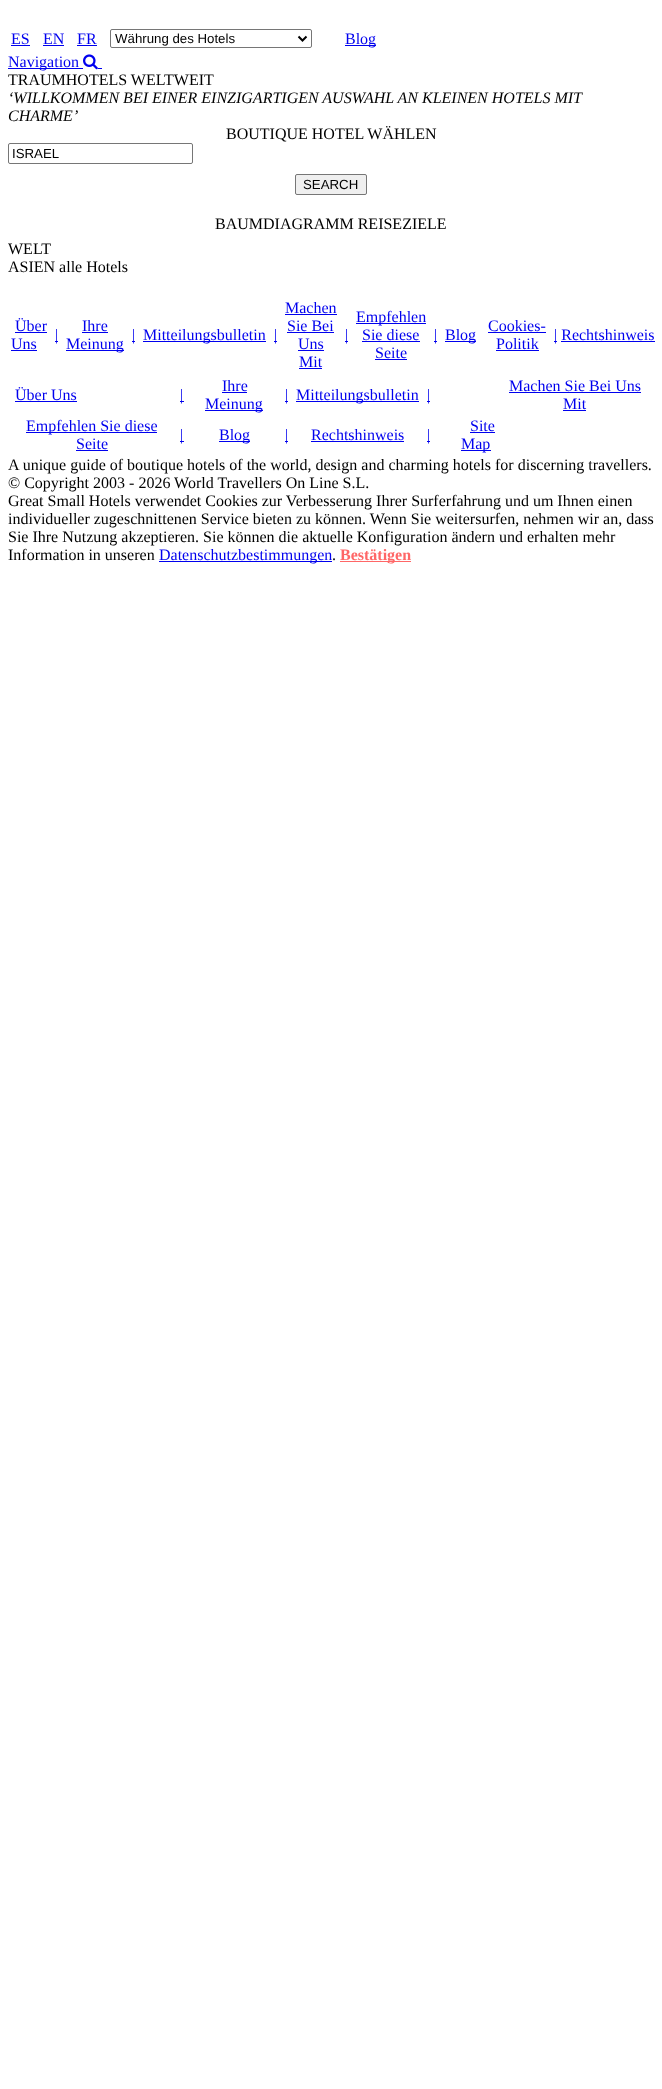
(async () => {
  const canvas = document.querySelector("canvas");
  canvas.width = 662;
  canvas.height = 2089;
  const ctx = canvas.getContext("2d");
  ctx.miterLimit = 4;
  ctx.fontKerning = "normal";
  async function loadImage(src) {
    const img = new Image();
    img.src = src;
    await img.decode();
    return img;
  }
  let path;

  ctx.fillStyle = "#ffffff";
  ctx.fillRect(0, 0, 662, 2089);
  for (const [x, y, w, h, color] of [
    [11, 45, 19, 1, "#0000ee"],
    [43, 45, 21, 1, "#0000ee"],
    [77, 45, 20, 1, "#0000ee"],
  ]) {
    ctx.fillStyle = color;
    ctx.fillRect(x, y, w, h);
  }
  ctx.beginPath();
  ctx.roundRect(110.5, 29.5, 201, 18, 1.5);
  ctx.strokeStyle = "#767676";
  ctx.stroke();
  path = new Path2D("M298.5 36.5L302.5 40.5L306.5 36.5");
  ctx.strokeStyle = "#000000";
  ctx.lineWidth = 2;
  ctx.stroke(path);
  ctx.fillRect(345, 45, 31, 1);
  ctx.fillRect(8, 68, 75, 1);
  ctx.drawImage(await loadImage("img/1.png"), 83, 54, 15, 16);
  ctx.fillRect(98, 68, 4, 1);
  ctx.beginPath();
  ctx.roundRect(8.5, 143.5, 184, 20, 1.5);
  ctx.strokeStyle = "#767676";
  ctx.lineWidth = 1;
  ctx.stroke();
  ctx.fillStyle = "#efefef";
  ctx.beginPath();
  ctx.roundRect(295.5, 174.5, 71, 20, 1.5);
  ctx.fill();
  ctx.stroke();
  for (const [x, y, w, h, color] of [
    [15, 332, 32, 1, "#0000ee"],
    [11, 350, 26, 1, "#0000ee"],
    [55, 341, 3, 1, "#0000ee"],
    [82, 332, 26, 1, "#0000ee"],
    [66, 350, 58, 1, "#0000ee"],
    [132, 341, 3, 1, "#0000ee"],
    [143, 341, 123, 1, "#0000ee"],
    [274, 341, 3, 1, "#0000ee"],
    [285, 314, 52, 1, "#0000ee"],
    [287, 332, 47, 1, "#0000ee"],
    [298, 350, 26, 1, "#0000ee"],
    [299, 368, 23, 1, "#0000ee"],
    [345, 341, 3, 1, "#0000ee"],
    [356, 323, 70, 1, "#0000ee"],
    [362, 341, 58, 1, "#0000ee"],
    [375, 359, 32, 1, "#0000ee"],
    [434, 341, 3, 1, "#0000ee"],
    [445, 341, 31, 1, "#0000ee"],
    [488, 332, 58, 1, "#0000ee"],
    [496, 350, 43, 1, "#0000ee"],
    [554, 341, 3, 1, "#0000ee"],
    [561, 341, 94, 1, "#0000ee"],
    [15, 401, 62, 1, "#0000ee"],
    [180, 401, 4, 1, "#0000ee"],
    [222, 392, 25, 1, "#0000ee"],
    [205, 410, 58, 1, "#0000ee"],
    [285, 401, 3, 1, "#0000ee"],
    [296, 401, 123, 1, "#0000ee"],
    [427, 401, 3, 1, "#0000ee"],
    [509, 392, 132, 1, "#0000ee"],
    [563, 410, 23, 1, "#0000ee"],
    [26, 432, 131, 1, "#0000ee"],
    [76, 450, 32, 1, "#0000ee"],
    [180, 441, 4, 1, "#0000ee"],
    [219, 441, 31, 1, "#0000ee"],
    [285, 441, 3, 1, "#0000ee"],
    [311, 441, 93, 1, "#0000ee"],
    [427, 441, 3, 1, "#0000ee"],
    [470, 432, 25, 1, "#0000ee"],
    [461, 450, 30, 1, "#0000ee"],
    [159, 561, 173, 1, "#0000ee"],
    [340, 561, 71, 1, "#ff6767"],
  ]) {
    ctx.fillStyle = color;
    ctx.fillRect(x, y, w, h);
  }
  ctx.font = "16px Liberation Serif";
  ctx.fillStyle = "#0000ee";
  for (const [text, x, y] of [
    ["ES", 11, 44],
    ["EN", 43, 44],
    ["FR", 77, 44],
  ]) {
    ctx.fillText(text, x, y);
  }
  ctx.font = "13.25px Liberation Sans";
  ctx.fillStyle = "#000000";
  ctx.fillText("Währung des Hotels", 115, 43);
  ctx.font = "16px Liberation Serif";
  ctx.fillStyle = "#0000ee";
  ctx.fillText("Blog", 345, 44);
  ctx.fillText("Navigation", 8, 67);
  ctx.fillStyle = "#000000";
  ctx.fillText("TRAUMHOTELS WELTWEIT", 8, 85);
  ctx.font = "italic 16px Liberation Serif";
  ctx.fillText("‘WILLKOMMEN BEI EINER EINZIGARTIGEN AUSWAHL AN KLEINEN HOTELS MIT", 8, 103);
  ctx.fillText("CHARME’", 8, 121);
  ctx.font = "16px Liberation Serif";
  ctx.fillText("BOUTIQUE HOTEL WÄHLEN", 226, 139);
  ctx.font = "13.25px Liberation Sans";
  ctx.fillText("ISRAEL", 12, 158);
  ctx.fillText("SEARCH", 303, 189);
  ctx.font = "16px Liberation Serif";
  for (const [text, x, y] of [
    ["BAUMDIAGRAMM REISEZIELE", 215, 229],
    ["WELT", 8, 254],
    ["ASIEN alle Hotels", 8, 272],
  ]) {
    ctx.fillText(text, x, y);
  }
  ctx.fillStyle = "#0000ee";
  for (const [text, x, y] of [
    ["Über", 15, 331],
    ["Uns", 11, 349],
    ["|", 55, 340],
    ["Ihre", 82, 331],
    ["Meinung", 66, 349],
    ["|", 132, 340],
    ["Mitteilungsbulletin", 143, 340],
    ["|", 274, 340],
    ["Machen", 285, 313],
    ["Sie Bei", 287, 331],
    ["Uns", 298, 349],
    ["Mit", 299, 367],
    ["|", 345, 340],
    ["Empfehlen", 356, 322],
    ["Sie diese", 362, 340],
    ["Seite", 375, 358],
    ["|", 434, 340],
    ["Blog", 445, 340],
    ["Cookies-", 488, 331],
    ["Politik", 496, 349],
    ["| Rechtshinweis", 554, 340],
    ["Über Uns", 15, 400],
    ["|", 180, 400],
    ["Ihre", 222, 391],
    ["Meinung", 205, 409],
    ["|", 285, 400],
    ["Mitteilungsbulletin", 296, 400],
    ["|", 427, 400],
    ["Machen Sie Bei Uns", 509, 391],
    ["Mit", 563, 409],
    ["Empfehlen Sie diese", 26, 431],
    ["Seite", 76, 449],
    ["|", 180, 440],
    ["Blog", 219, 440],
    ["|", 285, 440],
    ["Rechtshinweis", 311, 440],
    ["|", 427, 440],
    ["Site", 470, 431],
    ["Map", 461, 449],
  ]) {
    ctx.fillText(text, x, y);
  }
  ctx.fillStyle = "#000000";
  for (const [text, x, y] of [
    ["A unique guide of boutique hotels of the world, design and charming hotels for discerning travellers.", 8, 470],
    ["© Copyright 2003 - 2026 World Travellers On Line S.L.", 8, 488],
    ["Great Small Hotels verwendet Cookies zur Verbesserung Ihrer Surferfahrung und um Ihnen einen", 8, 506],
    ["individueller zugeschnittenen Service bieten zu können. Wenn Sie weitersurfen, nehmen wir an, dass", 8, 524],
    ["Sie Ihre Nutzung akzeptieren. Sie können die aktuelle Konfiguration ändern und erhalten mehr", 8, 542],
    ["Information in unseren", 8, 560],
  ]) {
    ctx.fillText(text, x, y);
  }
  ctx.fillStyle = "#0000ee";
  ctx.fillText("Datenschutzbestimmungen", 159, 560);
  ctx.fillStyle = "#000000";
  ctx.fillText(".", 332, 560);
  ctx.font = "bold 16px Liberation Serif";
  ctx.fillStyle = "#ff6767";
  ctx.fillText("Bestätigen", 340, 560);
})();
